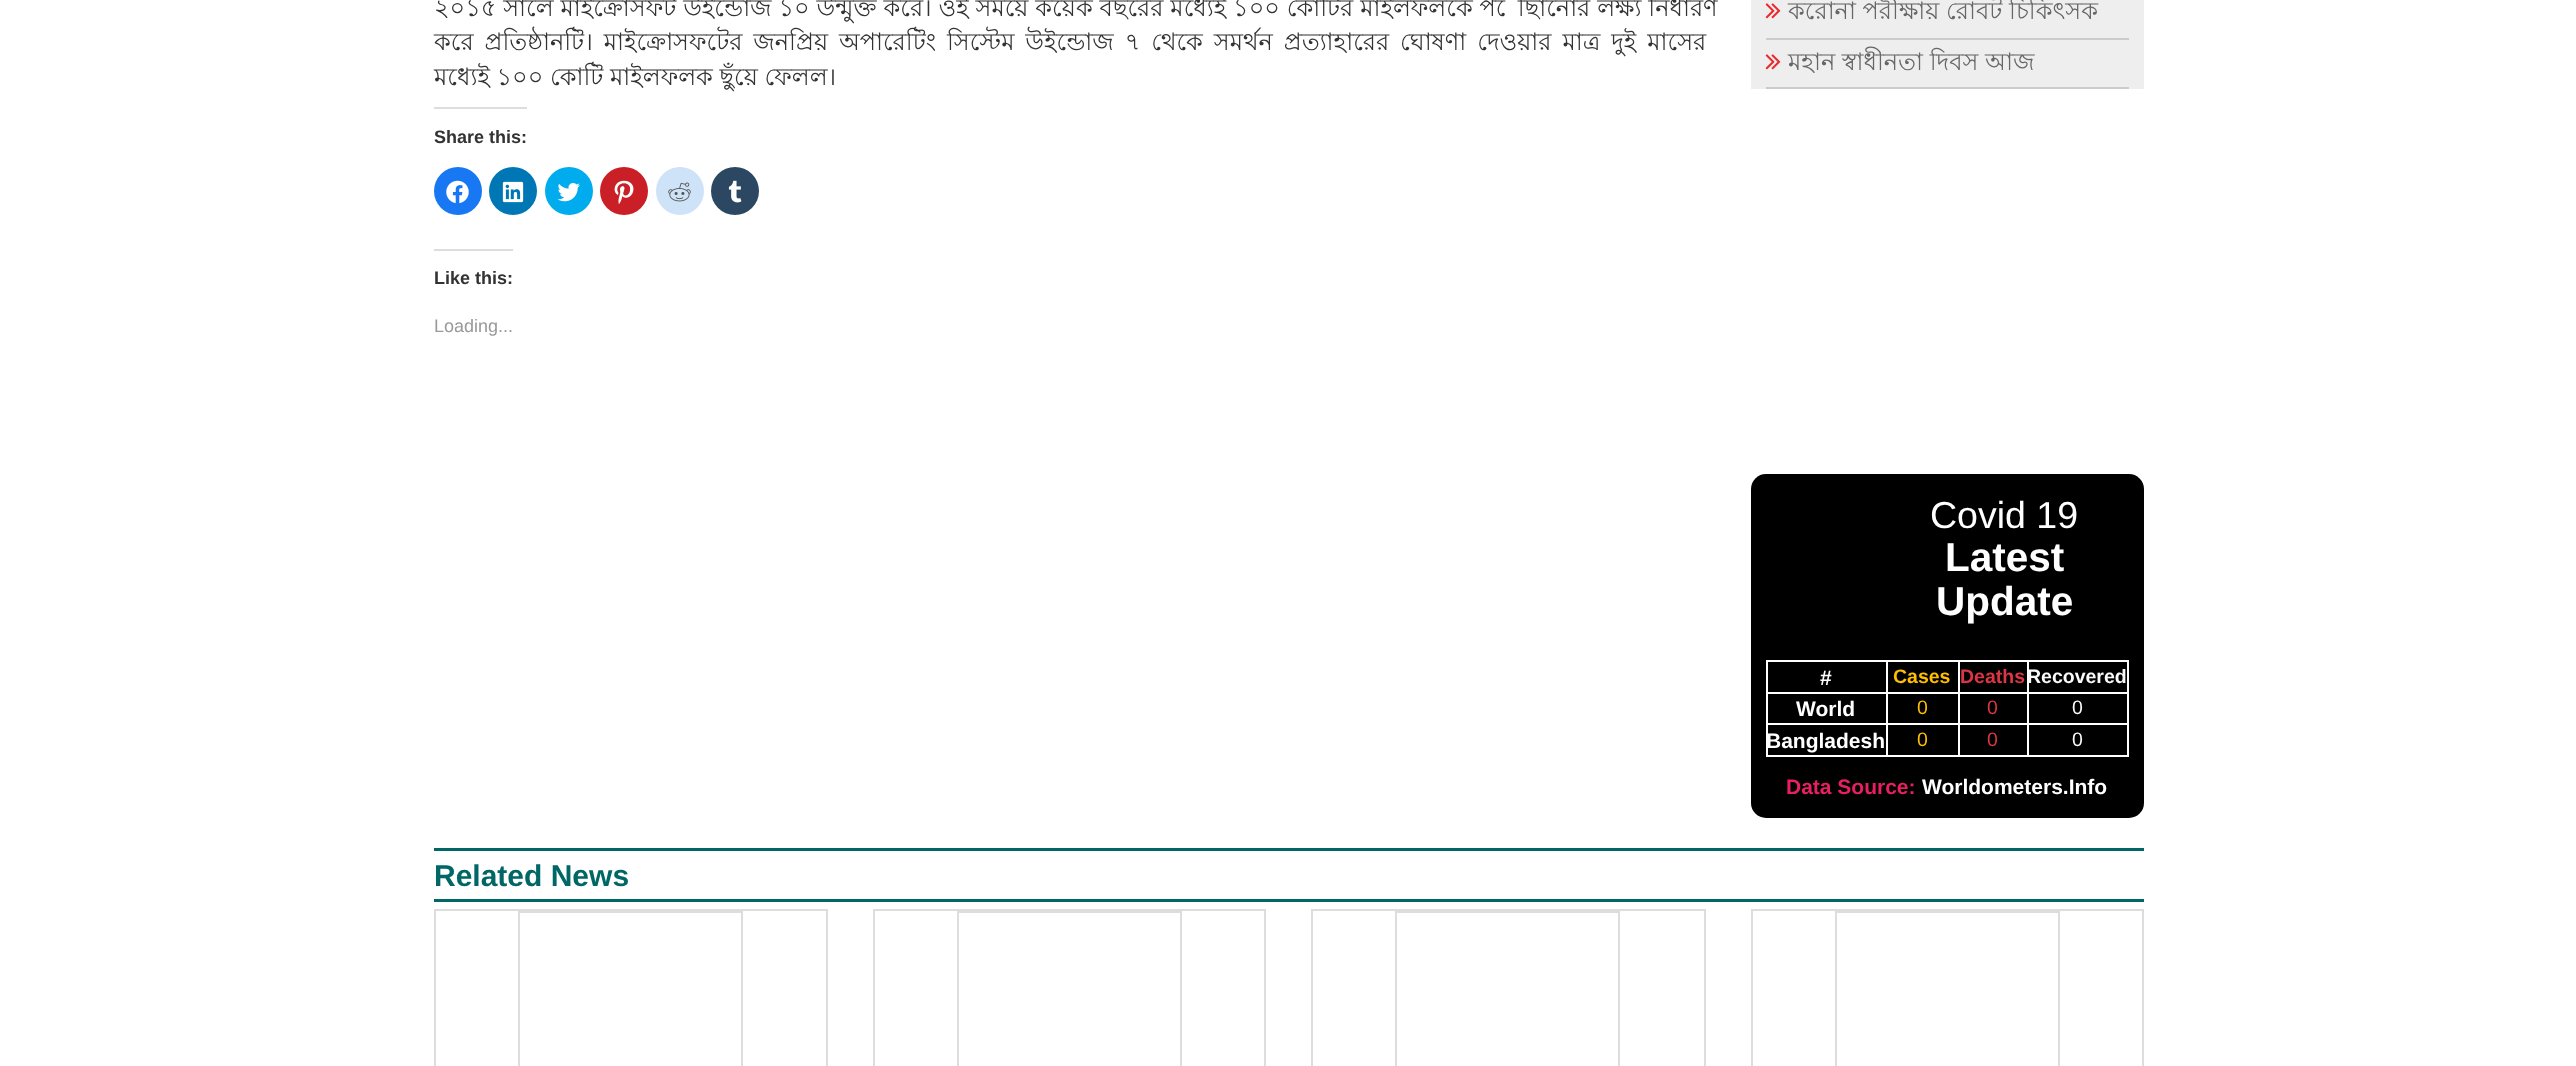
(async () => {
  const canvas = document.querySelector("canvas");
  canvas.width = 2576;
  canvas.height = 1066;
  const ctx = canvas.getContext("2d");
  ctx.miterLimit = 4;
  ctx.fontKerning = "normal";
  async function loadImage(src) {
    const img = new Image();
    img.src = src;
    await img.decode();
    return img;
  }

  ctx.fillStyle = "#ffffff";
  ctx.fillRect(0, 0, 2576, 1066);
  ctx.fillStyle = "#dddddd";
  ctx.fillRect(434, 107, 93, 2);
  ctx.fillStyle = "#1877f2";
  ctx.beginPath();
  ctx.arc(458, 191, 24, 0, Math.PI * 2);
  ctx.fill();
  ctx.drawImage(await loadImage("img/1.png"), 446, 180, 23, 24);
  ctx.fillStyle = "#0077b5";
  ctx.beginPath();
  ctx.arc(513, 191, 24, 0, Math.PI * 2);
  ctx.fill();
  ctx.drawImage(await loadImage("img/2.png"), 502, 181, 22, 22);
  ctx.fillStyle = "#00acee";
  ctx.beginPath();
  ctx.arc(569, 191, 24, 0, Math.PI * 2);
  ctx.fill();
  ctx.drawImage(await loadImage("img/3.png"), 557, 183, 23, 19);
  ctx.fillStyle = "#ca1f27";
  ctx.beginPath();
  ctx.arc(624, 191, 24, 0, Math.PI * 2);
  ctx.fill();
  ctx.drawImage(await loadImage("img/4.png"), 614, 180, 20, 24);
  ctx.fillStyle = "#cee3f8";
  ctx.beginPath();
  ctx.arc(680, 191, 24, 0, Math.PI * 2);
  ctx.fill();
  ctx.drawImage(await loadImage("img/5.png"), 668, 182, 23, 20);
  ctx.fillStyle = "#2c4762";
  ctx.beginPath();
  ctx.arc(735, 191, 24, 0, Math.PI * 2);
  ctx.fill();
  ctx.drawImage(await loadImage("img/6.png"), 728, 180, 14, 23);
  for (const [x, y, w, h, color] of [
    [434, 249, 79, 2, "#dddddd"],
    [1751, 0, 393, 89, "#eeeeee"],
    [1766, 38, 363, 2, "#cccccc"],
  ]) {
    ctx.fillStyle = color;
    ctx.fillRect(x, y, w, h);
  }
  ctx.drawImage(await loadImage("img/7.png"), 1765, 3, 16, 16);
  ctx.fillRect(1766, 87, 363, 2);
  ctx.drawImage(await loadImage("img/7.png"), 1765, 54, 16, 16);
  ctx.fillStyle = "#000000";
  ctx.beginPath();
  ctx.roundRect(1751, 474, 393, 344, 15);
  ctx.fill();
  for (const [x, y, w, h, color] of [
    [2027, 660, 102, 2, "#ffffff"],
    [2027, 692, 102, 2, "#ffffff"],
    [2027, 723, 102, 2, "#ffffff"],
    [2127, 723, 2, 33, "#ffffff"],
    [2027, 755, 102, 2, "#ffffff"],
    [2027, 723, 2, 33, "#ffffff"],
    [1958, 723, 70, 2, "#ffffff"],
    [2027, 692, 2, 33, "#ffffff"],
    [1958, 692, 70, 2, "#ffffff"],
    [2027, 660, 2, 33, "#ffffff"],
    [1958, 660, 70, 2, "#ffffff"],
    [1958, 755, 70, 2, "#ffffff"],
    [1958, 723, 2, 33, "#ffffff"],
    [1886, 723, 73, 2, "#ffffff"],
    [1958, 692, 2, 33, "#ffffff"],
    [1886, 692, 73, 2, "#ffffff"],
    [1958, 660, 2, 33, "#ffffff"],
    [1886, 660, 73, 2, "#ffffff"],
    [1886, 755, 73, 2, "#ffffff"],
    [1886, 723, 2, 33, "#ffffff"],
    [1766, 723, 121, 2, "#ffffff"],
    [1886, 692, 2, 33, "#ffffff"],
    [1766, 692, 121, 2, "#ffffff"],
    [1886, 660, 2, 33, "#ffffff"],
    [1766, 660, 121, 2, "#ffffff"],
    [1766, 755, 121, 2, "#ffffff"],
    [1766, 723, 2, 33, "#ffffff"],
    [1766, 692, 2, 33, "#ffffff"],
    [1766, 660, 2, 33, "#ffffff"],
    [2127, 692, 2, 33, "#ffffff"],
    [2127, 660, 2, 33, "#ffffff"],
    [434, 848, 1710, 3, "#006666"],
    [434, 899, 1710, 3, "#006666"],
  ]) {
    ctx.fillStyle = color;
    ctx.fillRect(x, y, w, h);
  }
  ctx.strokeStyle = "#dddddd";
  ctx.lineWidth = 2;
  ctx.strokeRect(435, 910, 392, 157);
  ctx.strokeRect(519, 912, 223, 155);
  ctx.strokeRect(874, 910, 391, 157);
  ctx.strokeRect(958, 912, 223, 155);
  ctx.strokeRect(1312, 910, 393, 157);
  ctx.strokeRect(1396, 912, 223, 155);
  ctx.strokeRect(1752, 910, 391, 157);
  ctx.strokeRect(1836, 912, 223, 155);
  ctx.wordSpacing = "0.2px";
  ctx.font = "24px Lohit Bengali";
  ctx.fillStyle = "#333333";
  ctx.fillText("২০১৫ সালে মাইক্রোসফট উইন্ডোজ ১০ উন্মুক্ত করে। ওই সময়ে কয়েক বছরের মধ্যেই ১০০ কোটির মাইলফলকে পৌঁছানোর লক্ষ্য নির্ধারণ", 434, 16);
  ctx.wordSpacing = "4.25px";
  ctx.fillText("করে প্রতিষ্ঠানটি। মাইক্রোসফটের জনপ্রিয় অপারেটিং সিস্টেম উইন্ডোজ ৭ থেকে সমর্থন প্রত্যাহারের ঘোষণা দেওয়ার মাত্র দুই মাসের", 434, 50);
  ctx.wordSpacing = "0px";
  ctx.fillText("মধ্যেই ১০০ কোটি মাইলফলক ছুঁয়ে ফেলল।", 434, 85);
  ctx.font = "bold 18px Liberation Sans";
  ctx.fillText("Share this:", 434, 143);
  ctx.fillText("Like this:", 434, 284);
  ctx.font = "18px Liberation Sans";
  ctx.fillStyle = "#999999";
  ctx.fillText("Loading...", 434, 332);
  ctx.font = "24px Lohit Bengali";
  ctx.fillStyle = "#666666";
  ctx.fillText("করোনা পরীক্ষায় রোবট চিকিৎসক", 1788, 19);
  ctx.fillText("মহান স্বাধীনতা দিবস আজ", 1788, 70);
  ctx.font = "37.5px Liberation Sans";
  ctx.fillStyle = "#ffffff";
  ctx.fillText("Covid 19", 1930, 528);
  ctx.font = "bold 40.5px Liberation Sans";
  ctx.fillText("Latest", 1945, 571);
  ctx.fillText("Update", 1936, 615);
  ctx.font = "bold 21px Liberation Sans";
  ctx.fillText("#", 1820, 685);
  ctx.font = "bold 19.5px Liberation Sans";
  ctx.fillStyle = "#ffbf00";
  ctx.fillText("Cases", 1893, 683);
  ctx.fillStyle = "#dc3545";
  ctx.fillText("Deaths", 1960, 683);
  ctx.fillStyle = "#f9f9f9";
  ctx.fillText("Recovered", 2027, 683);
  ctx.font = "bold 21px Liberation Sans";
  ctx.fillStyle = "#ffffff";
  ctx.fillText("World", 1796, 716);
  ctx.font = "19.5px Liberation Sans";
  ctx.fillStyle = "#ffbf00";
  ctx.fillText("0", 1917, 714);
  ctx.fillStyle = "#dc3545";
  ctx.fillText("0", 1987, 714);
  ctx.fillStyle = "#f9f9f9";
  ctx.fillText("0", 2072, 714);
  ctx.font = "bold 21px Liberation Sans";
  ctx.fillStyle = "#ffffff";
  ctx.fillText("Bangladesh", 1766, 748);
  ctx.font = "19.5px Liberation Sans";
  ctx.fillStyle = "#ffbf00";
  ctx.fillText("0", 1917, 746);
  ctx.fillStyle = "#dc3545";
  ctx.fillText("0", 1987, 746);
  ctx.fillStyle = "#f9f9f9";
  ctx.fillText("0", 2072, 746);
  ctx.font = "bold 21px Liberation Sans";
  ctx.fillStyle = "#e91e63";
  ctx.fillText("Data Source:", 1786, 794);
  ctx.fillStyle = "#ffffff";
  ctx.fillText("Worldometers.Info", 1922, 794);
  ctx.font = "bold 30px Liberation Sans";
  ctx.fillStyle = "#006666";
  ctx.fillText("Related News", 434, 886);
})();
